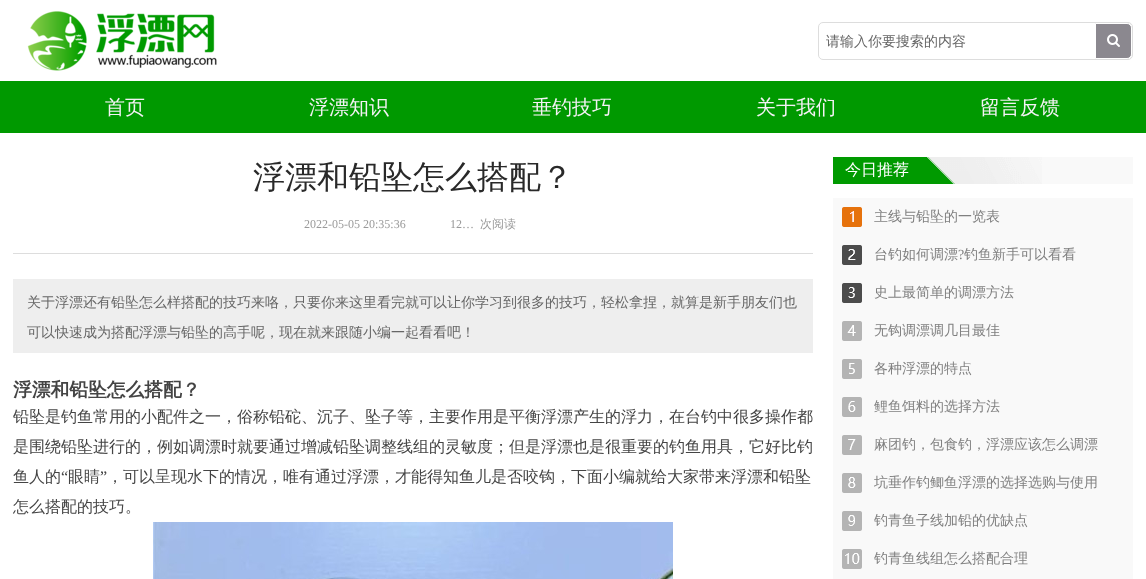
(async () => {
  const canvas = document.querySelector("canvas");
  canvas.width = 1146;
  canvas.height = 579;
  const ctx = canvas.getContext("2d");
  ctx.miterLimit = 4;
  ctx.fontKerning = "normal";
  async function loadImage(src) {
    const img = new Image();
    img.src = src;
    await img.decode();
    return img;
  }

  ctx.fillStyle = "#ffffff";
  ctx.fillRect(0, 0, 1146, 579);
  ctx.drawImage(await loadImage("img/1.png"), 27, 11, 190, 60);
  ctx.beginPath();
  ctx.roundRect(818.5, 22.5, 314, 37, 4.5);
  ctx.strokeStyle = "#dddddd";
  ctx.stroke();
  ctx.fillStyle = "#8b888f";
  ctx.beginPath();
  ctx.roundRect(1095.5, 23.5, 36, 35, [0, 4.5, 4.5, 0]);
  ctx.fill();
  ctx.strokeStyle = "#ffffff";
  ctx.stroke();
  ctx.drawImage(await loadImage("img/2.png"), 1107, 34, 13, 13);
  for (const [x, y, w, h, color] of [
    [0, 81, 1146, 52, "#009900"],
    [13, 253, 800, 1, "#dddddd"],
    [13, 279, 800, 74, "#eeeeee"],
  ]) {
    ctx.fillStyle = color;
    ctx.fillRect(x, y, w, h);
  }
  ctx.drawImage(await loadImage("img/3.png"), 153, 522, 520, 57);
  ctx.fillStyle = "#f9f9f9";
  ctx.fillRect(1042, 157, 91, 27);
  ctx.drawImage(await loadImage("img/4.png"), 833, 157, 209, 27);
  ctx.fillRect(833, 198, 300, 381);
  ctx.drawImage(await loadImage("img/5.png"), 842, 207, 20, 362);
  ctx.font = "500 14px WenQuanYi Zen Hei";
  ctx.fillStyle = "#666666";
  ctx.fillText("请输入你要搜索的内容", 826, 46);
  ctx.font = "500 20px WenQuanYi Zen Hei";
  ctx.fillStyle = "#f4f2f5";
  for (const [text, x, y] of [
    ["首页", 105, 114],
    ["浮漂知识", 309, 114],
    ["垂钓技巧", 532, 114],
    ["关于我们", 756, 114],
    ["留言反馈", 980, 114],
  ]) {
    ctx.fillText(text, x, y);
  }
  ctx.font = "500 32px WenQuanYi Zen Hei";
  ctx.fillStyle = "#292929";
  ctx.fillText("浮漂和铅坠怎么搭配？", 253, 188);
  ctx.font = "12px Liberation Serif";
  ctx.fillStyle = "#999999";
  ctx.fillText("2022-05-05 20:35:36", 304, 228);
  ctx.fillText("12…", 450, 228);
  ctx.font = "500 12px WenQuanYi Zen Hei";
  ctx.fillText("次阅读", 480, 228);
  ctx.font = "500 14px WenQuanYi Zen Hei";
  ctx.fillStyle = "#666666";
  ctx.fillText("关于浮漂还有铅坠怎么样搭配的技巧来咯，只要你来这里看完就可以让你学习到很多的技巧，轻松拿捏，就算是新手朋友们也", 27, 307);
  ctx.fillText("可以快速成为搭配浮漂与铅坠的高手呢，现在就来跟随小编一起看看吧！", 27, 337);
  ctx.font = "bold 18.75px WenQuanYi Zen Hei";
  ctx.fillStyle = "#444444";
  ctx.fillText("浮漂和铅坠怎么搭配？", 13, 396);
  ctx.font = "500 16px WenQuanYi Zen Hei";
  for (const [text, x, y] of [
    ["铅坠是钓鱼常用的小配件之一，俗称铅砣、沉子、坠子等，主要作用是平衡浮漂产生的浮力，在台钓中很多操作都", 13, 422],
    ["是围绕铅坠进行的，例如调漂时就要通过增减铅坠调整线组的灵敏度；但是浮漂也是很重要的钓鱼用具，它好比钓", 13, 452],
    ["鱼人的", 13, 482],
  ]) {
    ctx.fillText(text, x, y);
  }
  ctx.font = "16px Liberation Serif";
  ctx.fillText("“", 61, 482);
  ctx.font = "500 16px WenQuanYi Zen Hei";
  ctx.fillText("眼睛", 68, 482);
  ctx.font = "16px Liberation Serif";
  ctx.fillText("”", 100, 482);
  ctx.font = "500 16px WenQuanYi Zen Hei";
  ctx.fillText("，可以呈现水下的情况，唯有通过浮漂，才能得知鱼儿是否咬钩，下面小编就给大家带来浮漂和铅坠", 107, 482);
  ctx.fillText("怎么搭配的技巧。", 13, 512);
  ctx.fillStyle = "#ffffff";
  ctx.fillText("今日推荐", 845, 175);
  ctx.font = "500 14px WenQuanYi Zen Hei";
  ctx.fillStyle = "#808080";
  ctx.fillText("主线与铅坠的一览表", 874, 221);
  ctx.fillText("台钓如何调漂", 874, 259);
  ctx.font = "14px Liberation Serif";
  ctx.fillText("?", 958, 259);
  ctx.font = "500 14px WenQuanYi Zen Hei";
  for (const [text, x, y] of [
    ["钓鱼新手可以看看", 964, 259],
    ["史上最简单的调漂方法", 874, 297],
    ["无钩调漂调几目最佳", 874, 335],
    ["各种浮漂的特点", 874, 373],
    ["鲤鱼饵料的选择方法", 874, 411],
    ["麻团钓，包食钓，浮漂应该怎么调漂", 874, 449],
    ["坑垂作钓鲫鱼浮漂的选择选购与使用", 874, 487],
    ["钓青鱼子线加铅的优缺点", 874, 525],
    ["钓青鱼线组怎么搭配合理", 874, 563],
  ]) {
    ctx.fillText(text, x, y);
  }
})();
